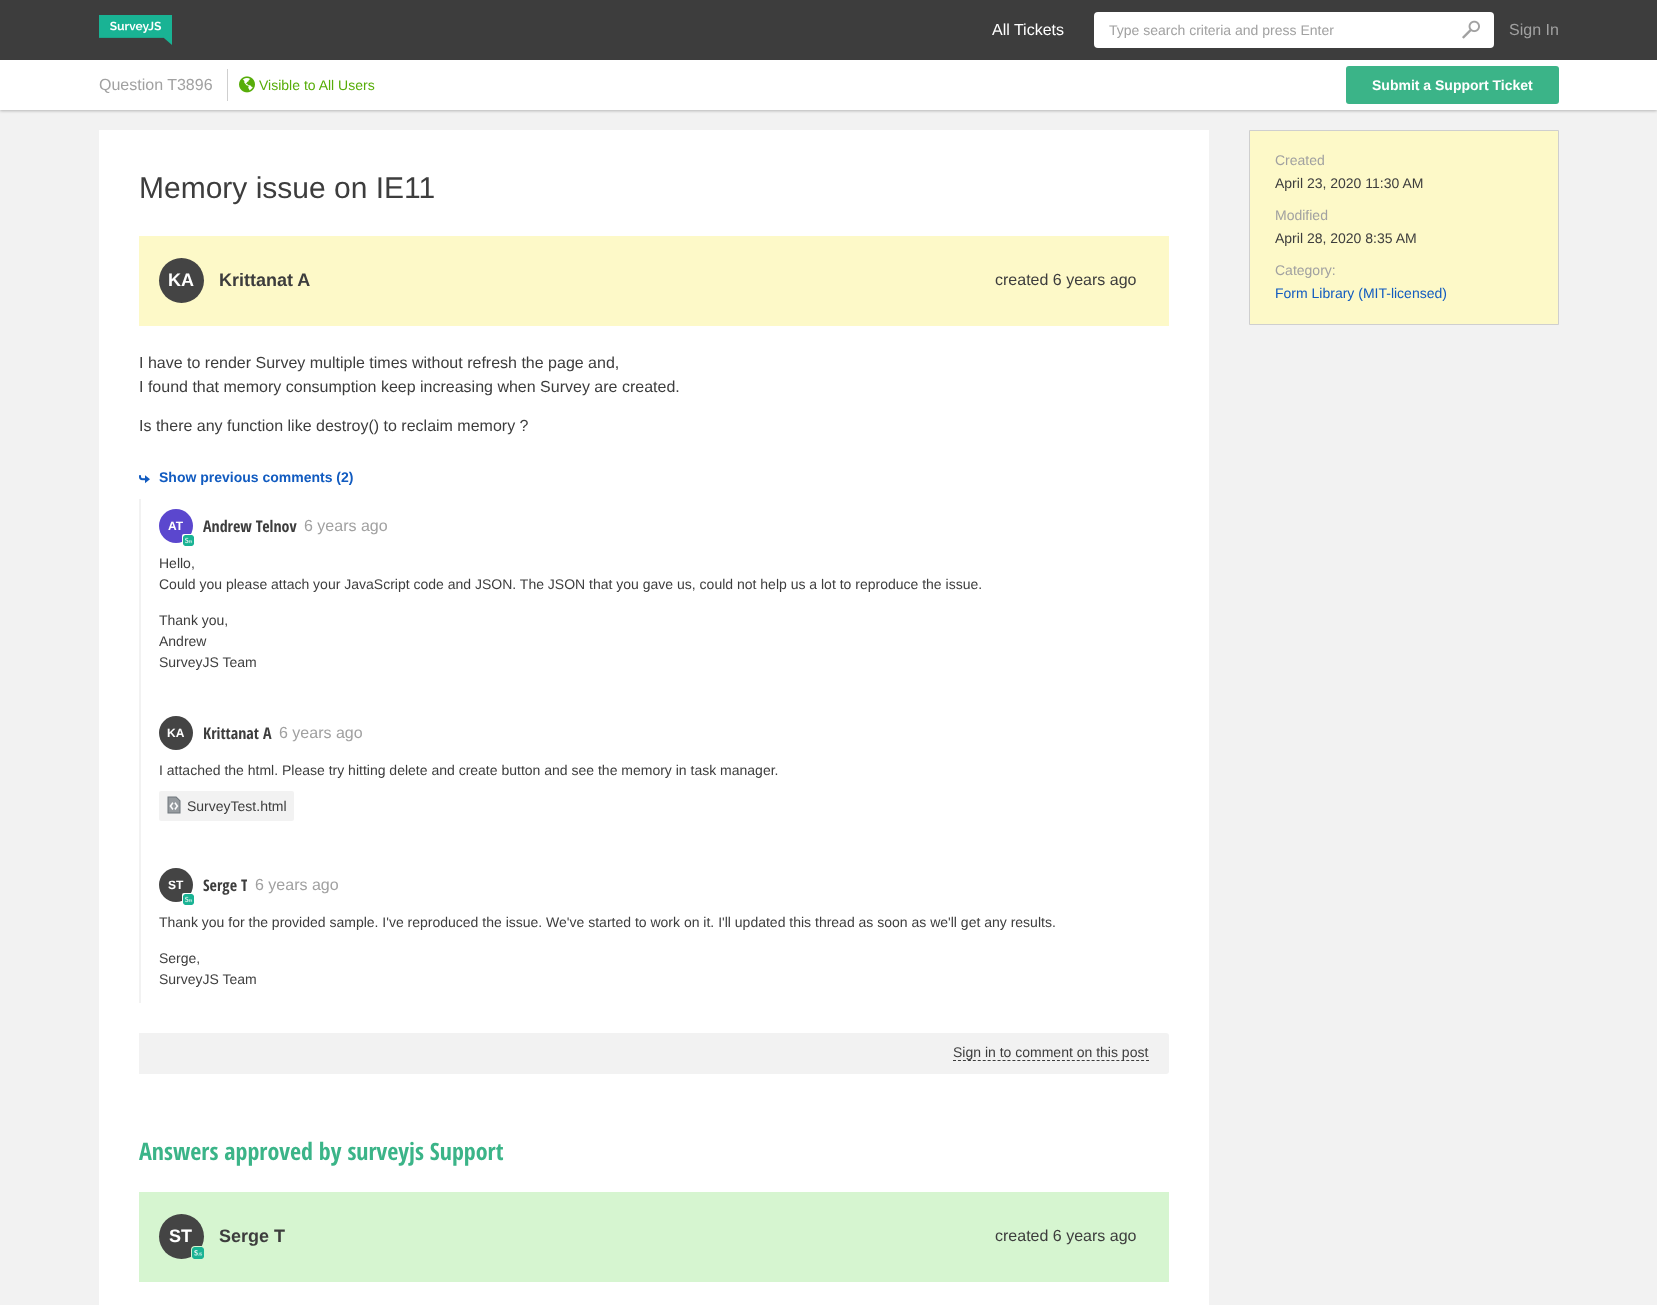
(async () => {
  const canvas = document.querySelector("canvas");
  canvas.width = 1657;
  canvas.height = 1305;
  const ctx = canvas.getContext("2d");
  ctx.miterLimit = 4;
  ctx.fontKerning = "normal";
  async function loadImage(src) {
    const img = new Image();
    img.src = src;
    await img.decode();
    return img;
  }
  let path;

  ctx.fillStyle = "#f2f2f2";
  ctx.fillRect(0, 0, 1657, 1305);
  ctx.fillStyle = "rgba(0, 0, 0, 0.25)";
  ctx.filter = "blur(1.5px)";
  ctx.beginPath();
  ctx.rect(0, 61, 1657, 50);
  ctx.fill();
  ctx.filter = "none";
  ctx.fillStyle = "#3d3d3d";
  ctx.fillRect(0, 0, 1657, 60);
  ctx.drawImage(await loadImage("img/1.png"), 99, 15, 73, 30);
  ctx.fillStyle = "#ffffff";
  ctx.beginPath();
  ctx.roundRect(1094, 12, 400, 36, 4);
  ctx.fill();
  ctx.drawImage(await loadImage("img/2.png"), 1462, 20, 18, 19);
  ctx.fillRect(0, 60, 1657, 50);
  ctx.fillStyle = "#cfcfcf";
  ctx.fillRect(227, 69, 1, 32);
  ctx.drawImage(await loadImage("img/3.png"), 239, 76, 16, 17);
  ctx.fillStyle = "#3bb488";
  ctx.beginPath();
  ctx.roundRect(1346, 66, 213, 38, 3);
  ctx.fill();
  ctx.fillStyle = "#ffffff";
  ctx.fillRect(99, 130, 1110, 1175);
  ctx.fillStyle = "#fdf9c8";
  ctx.fillRect(139, 236, 1030, 90);
  ctx.fillStyle = "#444444";
  ctx.beginPath();
  ctx.arc(181.5, 280.5, 22.5, 0, Math.PI * 2);
  ctx.fill();
  ctx.drawImage(await loadImage("img/4.png"), 139, 475, 11, 9);
  ctx.fillStyle = "#f2f2f2";
  ctx.fillRect(139, 499, 2, 504);
  ctx.fillStyle = "#5b47ce";
  ctx.beginPath();
  ctx.arc(176, 526, 17, 0, Math.PI * 2);
  ctx.fill();
  ctx.fillStyle = "#ffffff";
  ctx.beginPath();
  ctx.roundRect(182, 534, 14, 14, 2);
  ctx.fill();
  ctx.drawImage(await loadImage("img/5.png"), 183, 535, 11, 11);
  ctx.fillStyle = "#444444";
  ctx.beginPath();
  ctx.arc(176, 733, 17, 0, Math.PI * 2);
  ctx.fill();
  ctx.fillStyle = "#f2f2f2";
  ctx.beginPath();
  ctx.roundRect(159, 791, 135, 30, 2);
  ctx.fill();
  ctx.drawImage(await loadImage("img/6.png"), 167, 796, 14, 18);
  ctx.fillStyle = "#444444";
  ctx.beginPath();
  ctx.arc(176, 885, 17, 0, Math.PI * 2);
  ctx.fill();
  ctx.fillStyle = "#ffffff";
  ctx.beginPath();
  ctx.roundRect(182, 893, 14, 14, 2);
  ctx.fill();
  ctx.drawImage(await loadImage("img/5.png"), 183, 894, 11, 11);
  ctx.fillStyle = "#f2f2f2";
  ctx.beginPath();
  ctx.roundRect(139, 1033, 1030, 41, [0, 3, 3, 0]);
  ctx.fill();
  path = new Path2D("M953 1060.5H1149");
  ctx.strokeStyle = "#3d3d3d";
  ctx.setLineDash([3, 1.95]);
  ctx.stroke(path);
  ctx.fillStyle = "#d6f5d0";
  ctx.fillRect(139, 1192, 1030, 90);
  ctx.fillStyle = "#444444";
  ctx.beginPath();
  ctx.arc(181.5, 1236.5, 22.5, 0, Math.PI * 2);
  ctx.fill();
  ctx.fillStyle = "#d6f5d0";
  ctx.beginPath();
  ctx.roundRect(191, 1246, 14, 14, 4);
  ctx.fill();
  ctx.drawImage(await loadImage("img/7.png"), 192, 1247, 12, 12);
  ctx.fillStyle = "#fdf9c8";
  ctx.beginPath();
  ctx.rect(1249.5, 130.5, 309, 194);
  ctx.fill();
  ctx.strokeStyle = "#cfcfcf";
  ctx.setLineDash([]);
  ctx.stroke();
  ctx.font = "16px Liberation Sans";
  ctx.fillStyle = "#ffffff";
  ctx.fillText("All Tickets", 992, 35);
  ctx.font = "14px Liberation Sans";
  ctx.fillStyle = "#a1a1a1";
  ctx.fillText("Type search criteria and press Enter", 1109, 35);
  ctx.font = "16px Liberation Sans";
  ctx.fillText("Sign In", 1509, 35);
  ctx.fillText("Question T3896", 99, 90);
  ctx.font = "14px Liberation Sans";
  ctx.fillStyle = "#57ad09";
  ctx.fillText("Visible to All Users", 259, 90);
  ctx.font = "bold 14px Liberation Sans";
  ctx.fillStyle = "#ffffff";
  ctx.fillText("Submit a Support Ticket", 1372, 90);
  ctx.font = "30px Liberation Sans";
  ctx.fillStyle = "#3d3d3d";
  ctx.fillText("Memory issue on IE11", 139, 198);
  ctx.font = "bold 18px Liberation Sans";
  ctx.fillStyle = "#ffffff";
  ctx.fillText("KA", 168, 286);
  ctx.fillStyle = "#3d3d3d";
  ctx.fillText("Krittanat A", 219, 286);
  ctx.font = "16px Liberation Sans";
  for (const [text, x, y] of [
    ["created 6 years ago", 995, 285],
    ["I have to render Survey multiple times without refresh the page and,", 139, 368],
    ["I found that memory consumption keep increasing when Survey are created.", 139, 392],
    ["Is there any function like destroy() to reclaim memory ?", 139, 431],
  ]) {
    ctx.fillText(text, x, y);
  }
  ctx.font = "bold 14px Liberation Sans";
  ctx.fillStyle = "#115bc0";
  ctx.fillText("Show previous comments (2)", 159, 482);
  ctx.font = "bold 12px Liberation Sans";
  ctx.fillStyle = "#ffffff";
  ctx.fillText("AT", 168, 530);
  ctx.font = "bold 16px Open Sans Condensed";
  ctx.fillStyle = "#3d3d3d";
  ctx.fillText("Andrew Telnov", 203, 532);
  ctx.font = "16px Liberation Sans";
  ctx.fillStyle = "#a1a1a1";
  ctx.fillText("6 years ago", 304, 531);
  ctx.font = "14px Liberation Sans";
  ctx.fillStyle = "#3d3d3d";
  for (const [text, x, y] of [
    ["Hello,", 159, 568],
    ["Could you please attach your JavaScript code and JSON. The JSON that you gave us, could not help us a lot to reproduce the issue.", 159, 589],
    ["Thank you,", 159, 625],
    ["Andrew", 159, 646],
    ["SurveyJS Team", 159, 667],
  ]) {
    ctx.fillText(text, x, y);
  }
  ctx.font = "bold 12px Liberation Sans";
  ctx.fillStyle = "#ffffff";
  ctx.fillText("KA", 167, 737);
  ctx.font = "bold 16px Open Sans Condensed";
  ctx.fillStyle = "#3d3d3d";
  ctx.fillText("Krittanat A", 203, 739);
  ctx.font = "16px Liberation Sans";
  ctx.fillStyle = "#a1a1a1";
  ctx.fillText("6 years ago", 279, 738);
  ctx.font = "14px Liberation Sans";
  ctx.fillStyle = "#3d3d3d";
  ctx.fillText("I attached the html. Please try hitting delete and create button and see the memory in task manager.", 159, 775);
  ctx.fillText("SurveyTest.html", 187, 811);
  ctx.font = "bold 12px Liberation Sans";
  ctx.fillStyle = "#ffffff";
  ctx.fillText("ST", 168, 889);
  ctx.save();
  ctx.beginPath();
  ctx.rect(203, 868, 44, 34);
  ctx.clip();
  ctx.font = "bold 16px Open Sans Condensed";
  ctx.fillStyle = "#3d3d3d";
  ctx.fillText("Serge T", 203, 891);
  ctx.restore();
  ctx.font = "16px Liberation Sans";
  ctx.fillStyle = "#a1a1a1";
  ctx.fillText("6 years ago", 255, 890);
  ctx.font = "14px Liberation Sans";
  ctx.fillStyle = "#3d3d3d";
  for (const [text, x, y] of [
    ["Thank you for the provided sample. I've reproduced the issue. We've started to work on it. I'll updated this thread as soon as we'll get any results.", 159, 927],
    ["Serge,", 159, 963],
    ["SurveyJS Team", 159, 984],
    ["Sign in to comment on this post", 953, 1057],
  ]) {
    ctx.fillText(text, x, y);
  }
  ctx.font = "bold 24px Open Sans Condensed";
  ctx.fillStyle = "#3bb488";
  ctx.fillText("Answers approved by surveyjs Support", 139, 1160);
  ctx.font = "bold 18px Liberation Sans";
  ctx.fillStyle = "#ffffff";
  ctx.fillText("ST", 169, 1242);
  ctx.fillStyle = "#3d3d3d";
  ctx.fillText("Serge T", 219, 1242);
  ctx.font = "16px Liberation Sans";
  ctx.fillText("created 6 years ago", 995, 1241);
  ctx.font = "14px Liberation Sans";
  ctx.fillStyle = "#a1a1a1";
  ctx.fillText("Created", 1275, 165);
  ctx.fillStyle = "#3d3d3d";
  ctx.fillText("April 23, 2020 11:30 AM", 1275, 188);
  ctx.fillStyle = "#a1a1a1";
  ctx.fillText("Modified", 1275, 220);
  ctx.fillStyle = "#3d3d3d";
  ctx.fillText("April 28, 2020 8:35 AM", 1275, 243);
  ctx.fillStyle = "#a1a1a1";
  ctx.fillText("Category:", 1275, 275);
  ctx.fillStyle = "#115bc0";
  ctx.fillText("Form Library (MIT-licensed)", 1275, 298);
})();
